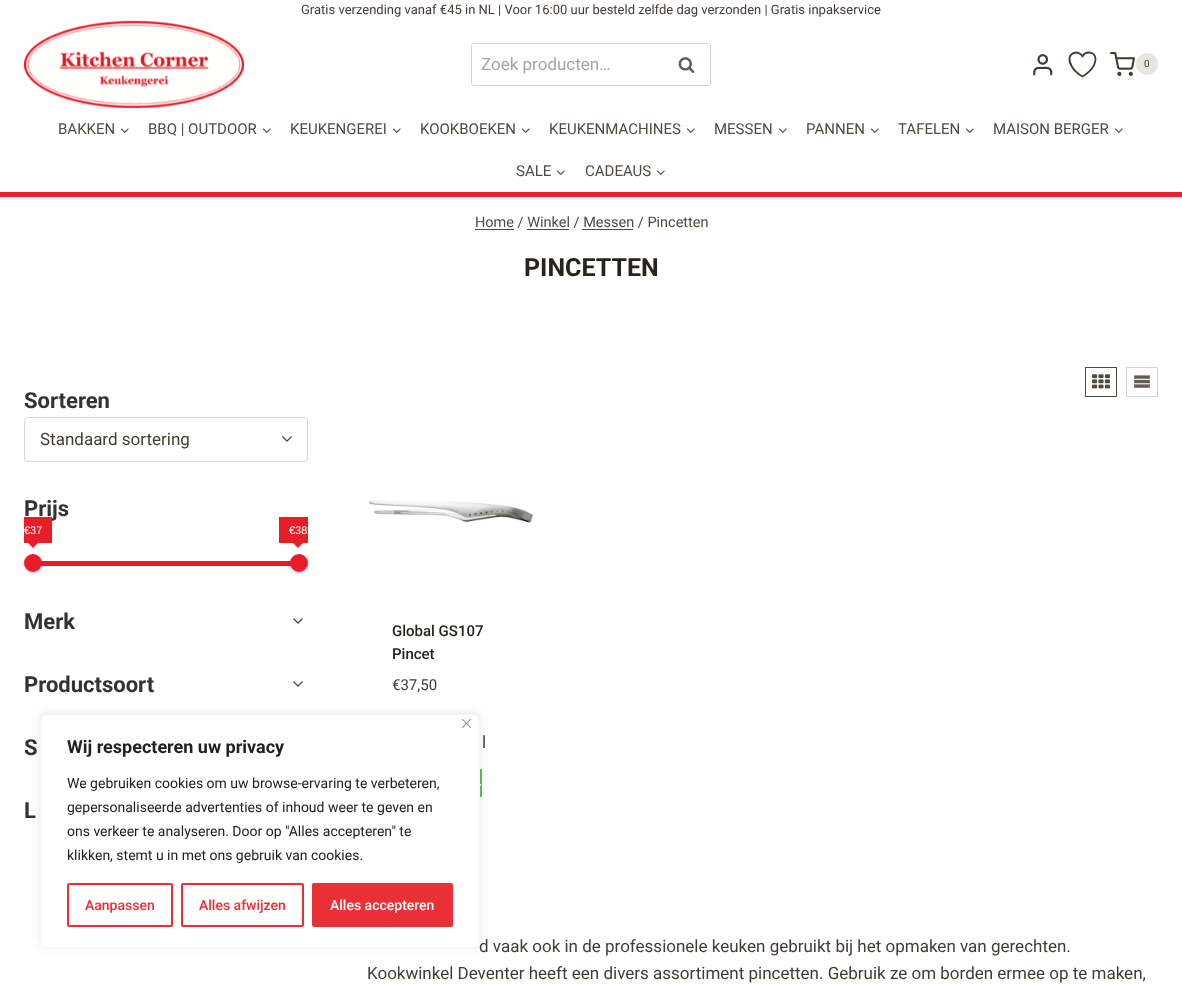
(async () => {
  const canvas = document.querySelector("canvas");
  canvas.width = 1182;
  canvas.height = 988;
  const ctx = canvas.getContext("2d");
  ctx.miterLimit = 4;
  ctx.fontKerning = "normal";
  async function loadImage(src) {
    const img = new Image();
    img.src = src;
    await img.decode();
    return img;
  }
  let path;

  ctx.fillStyle = "#ffffff";
  ctx.fillRect(0, 0, 1182, 988);
  ctx.drawImage(await loadImage("img/1.png"), 24, 20, 220, 88);
  ctx.beginPath();
  ctx.roundRect(471.5, 43.5, 239, 42, 2.5);
  ctx.strokeStyle = "#cbd5e0";
  ctx.stroke();
  ctx.drawImage(await loadImage("img/2.png"), 678, 57, 17, 16);
  ctx.drawImage(await loadImage("img/3.png"), 1033, 54, 20, 22);
  path = new Path2D("M1095.5 59C1095.5 52 1085.5 50 1082.5 56.5C1079 48.5 1064 53 1071.5 66C1074 70.5 1078 74 1082.5 76.5C1082.5 76.5 1095.5 69.5 1095.5 59Z");
  ctx.strokeStyle = "#423d33";
  ctx.lineWidth = 1.8;
  ctx.lineCap = "round";
  ctx.lineJoin = "round";
  ctx.stroke(path);
  ctx.drawImage(await loadImage("img/4.png"), 1110, 52, 25, 24);
  ctx.fillStyle = "#e8e6e1";
  ctx.beginPath();
  ctx.arc(1147, 64, 11, 0, Math.PI * 2);
  ctx.fill();
  ctx.drawImage(await loadImage("img/5.png"), 120, 128, 9, 5);
  ctx.drawImage(await loadImage("img/5.png"), 262, 128, 9, 5);
  ctx.drawImage(await loadImage("img/5.png"), 392, 128, 9, 5);
  ctx.drawImage(await loadImage("img/5.png"), 521, 128, 9, 5);
  ctx.drawImage(await loadImage("img/5.png"), 686, 128, 9, 5);
  ctx.drawImage(await loadImage("img/5.png"), 778, 128, 9, 5);
  ctx.drawImage(await loadImage("img/5.png"), 870, 128, 9, 5);
  ctx.drawImage(await loadImage("img/5.png"), 965, 128, 9, 5);
  ctx.drawImage(await loadImage("img/5.png"), 1114, 128, 9, 5);
  ctx.drawImage(await loadImage("img/5.png"), 556, 170, 9, 5);
  ctx.drawImage(await loadImage("img/5.png"), 656, 170, 9, 5);
  for (const [x, y, w, h, color] of [
    [0, 192, 1182, 5, "#e9202a"],
    [475, 229, 39, 1, "#504a40"],
    [527, 229, 42, 1, "#504a40"],
    [582, 229, 51, 1, "#504a40"],
  ]) {
    ctx.fillStyle = color;
    ctx.fillRect(x, y, w, h);
  }
  ctx.beginPath();
  ctx.roundRect(24.5, 417.5, 283, 44, 3.5);
  ctx.strokeStyle = "#d7d7d7";
  ctx.lineWidth = 1;
  ctx.lineJoin = "miter";
  ctx.stroke();
  ctx.drawImage(await loadImage("img/6.png"), 282, 436, 10, 6);
  ctx.fillStyle = "#e91d27";
  path = new Path2D("M28 543H38L33 548Z");
  ctx.fill(path);
  ctx.fillRect(279, 517, 29, 26);
  path = new Path2D("M293 543H303L298 548Z");
  ctx.fill(path);
  ctx.fillRect(33, 561, 265, 5);
  ctx.save();
  path = new Path2D("M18 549H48V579H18ZM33 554C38 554 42 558 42 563C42 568 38 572 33 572C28 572 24 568 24 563C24 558 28 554 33 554Z");
  ctx.clip(path, "evenodd");
  ctx.fillStyle = "rgba(0, 0, 255, 0.3)";
  ctx.filter = "blur(1.5px)";
  ctx.beginPath();
  ctx.roundRect(24, 555, 18, 18, 9);
  ctx.fill();
  ctx.filter = "none";
  ctx.restore();
  ctx.beginPath();
  ctx.arc(33, 563, 7, 0, Math.PI * 2);
  ctx.fill();
  ctx.strokeStyle = "#e91d27";
  ctx.lineWidth = 4;
  ctx.stroke();
  ctx.save();
  path = new Path2D("M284 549H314V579H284ZM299 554C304 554 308 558 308 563C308 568 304 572 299 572C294 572 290 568 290 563C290 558 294 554 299 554Z");
  ctx.clip(path, "evenodd");
  ctx.fillStyle = "rgba(0, 0, 255, 0.3)";
  ctx.filter = "blur(1.5px)";
  ctx.beginPath();
  ctx.roundRect(290, 555, 18, 18, 9);
  ctx.fill();
  ctx.filter = "none";
  ctx.restore();
  ctx.beginPath();
  ctx.arc(299, 563, 7, 0, Math.PI * 2);
  ctx.fill();
  ctx.stroke();
  ctx.drawImage(await loadImage("img/6.png"), 293, 618, 10, 6);
  ctx.drawImage(await loadImage("img/6.png"), 293, 681, 10, 6);
  ctx.strokeStyle = "#504a40";
  ctx.lineWidth = 1;
  ctx.strokeRect(1085.5, 367.5, 31, 29);
  ctx.drawImage(await loadImage("img/7.png"), 1092, 374, 18, 15);
  ctx.strokeStyle = "#cbd5e0";
  ctx.strokeRect(1126.5, 367.5, 31, 29);
  ctx.drawImage(await loadImage("img/8.png"), 1134, 375, 16, 13);
  ctx.drawImage(await loadImage("img/9.png"), 369, 500, 165, 23);
  ctx.fillStyle = "#4abf3b";
  ctx.fillRect(480, 769, 2, 28);
  ctx.drawImage(await loadImage("img/10.png"), 480, 783, 2, 3);
  ctx.fillStyle = "rgba(172, 171, 171, 0.3)";
  ctx.filter = "blur(5px)";
  ctx.beginPath();
  ctx.roundRect(40, 713, 440, 234, 6);
  ctx.fill();
  ctx.filter = "none";
  ctx.fillStyle = "#ffffff";
  ctx.beginPath();
  ctx.roundRect(40.5, 714.5, 439, 233, 5.5);
  ctx.fill();
  ctx.strokeStyle = "#f4f4f4";
  ctx.stroke();
  ctx.drawImage(await loadImage("img/11.png"), 462, 719, 9, 9);
  ctx.beginPath();
  ctx.roundRect(68, 884, 104, 42, 1);
  ctx.strokeStyle = "#ea2f36";
  ctx.lineWidth = 2;
  ctx.stroke();
  ctx.beginPath();
  ctx.roundRect(182, 884, 121, 42, 1);
  ctx.stroke();
  ctx.fillStyle = "#ea2f36";
  ctx.beginPath();
  ctx.roundRect(313, 884, 139, 42, 1);
  ctx.fill();
  ctx.stroke();
  ctx.font = "13px Roboto";
  ctx.fillStyle = "#423d33";
  ctx.fillText("Gratis verzending vanaf €45 in NL | Voor 16:00 uur besteld zelfde dag verzonden | Gratis inpakservice", 301, 14);
  ctx.font = "17px Roboto";
  ctx.fillStyle = "#a8a5a0";
  ctx.fillText("Zoek producten…", 481, 70);
  ctx.font = "10px Roboto";
  ctx.fillStyle = "#423d33";
  ctx.fillText("0", 1144, 67);
  ctx.font = "15px Roboto";
  ctx.fillStyle = "#504a40";
  for (const [text, x, y] of [
    ["BAKKEN", 58, 134],
    ["BBQ | OUTDOOR", 148, 134],
    ["KEUKENGEREI", 290, 134],
    ["KOOKBOEKEN", 420, 134],
    ["KEUKENMACHINES", 549, 134],
    ["MESSEN", 714, 134],
    ["PANNEN", 806, 134],
    ["TAFELEN", 898, 134],
    ["MAISON BERGER", 993, 134],
    ["SALE", 516, 176],
    ["CADEAUS", 585, 176],
  ]) {
    ctx.fillText(text, x, y);
  }
  ctx.font = "14.5px Roboto";
  ctx.fillText("Home / Winkel / Messen / Pincetten", 475, 227);
  ctx.font = "bold 25px Roboto";
  ctx.fillStyle = "#27241d";
  ctx.fillText("PINCETTEN", 524, 276);
  ctx.font = "bold 22px Roboto";
  ctx.fillStyle = "#333333";
  ctx.fillText("Sorteren", 24, 408);
  ctx.font = "17px Roboto";
  ctx.fillStyle = "#423d33";
  ctx.fillText("Standaard sortering", 40, 445);
  ctx.font = "bold 22px Roboto";
  ctx.fillStyle = "#333333";
  ctx.fillText("Prijs", 24, 516);
  ctx.fillStyle = "#e91d27";
  ctx.fillRect(24, 517, 28, 26);
  ctx.font = "11px Liberation Sans";
  ctx.fillStyle = "#ffffff";
  ctx.fillText("€37", 24, 534);
  ctx.fillText("€38", 289, 534);
  ctx.font = "bold 22px Roboto";
  ctx.fillStyle = "#333333";
  for (const [text, x, y] of [
    ["Merk", 24, 629],
    ["Productsoort", 24, 692],
    ["S", 24, 755],
    ["L", 24, 818],
  ]) {
    ctx.fillText(text, x, y);
  }
  ctx.font = "500 15px Roboto";
  ctx.fillStyle = "#27241d";
  ctx.fillText("Global GS107", 392, 636);
  ctx.fillText("Pincet", 392, 659);
  ctx.font = "15px Roboto";
  ctx.fillStyle = "#423d33";
  ctx.fillText("€37,50", 392, 690);
  ctx.font = "17px Roboto";
  for (const [text, x, y] of [
    ["l", 482, 748],
    ["d vaak ook in de professionele keuken gebruikt bij het opmaken van gerechten.", 479, 952],
    ["Kookwinkel Deventer heeft een divers assortiment pincetten. Gebruik ze om borden ermee op te maken,", 367, 979],
  ]) {
    ctx.fillText(text, x, y);
  }
  ctx.font = "bold 18px Roboto";
  ctx.fillStyle = "#212121";
  ctx.fillText("Wij respecteren uw privacy", 67, 753);
  ctx.font = "14px Roboto";
  for (const [text, x, y] of [
    ["We gebruiken cookies om uw browse-ervaring te verbeteren,", 67, 788],
    ["gepersonaliseerde advertenties of inhoud weer te geven en", 67, 812],
    ["ons verkeer te analyseren. Door op \"Alles accepteren\" te", 67, 836],
    ["klikken, stemt u in met ons gebruik van cookies.", 67, 860],
  ]) {
    ctx.fillText(text, x, y);
  }
  ctx.font = "500 14px Roboto";
  ctx.fillStyle = "#ea2f36";
  ctx.fillText("Aanpassen", 85, 910);
  ctx.fillText("Alles afwijzen", 199, 910);
  ctx.fillStyle = "#ffffff";
  ctx.fillText("Alles accepteren", 330, 910);
})();
